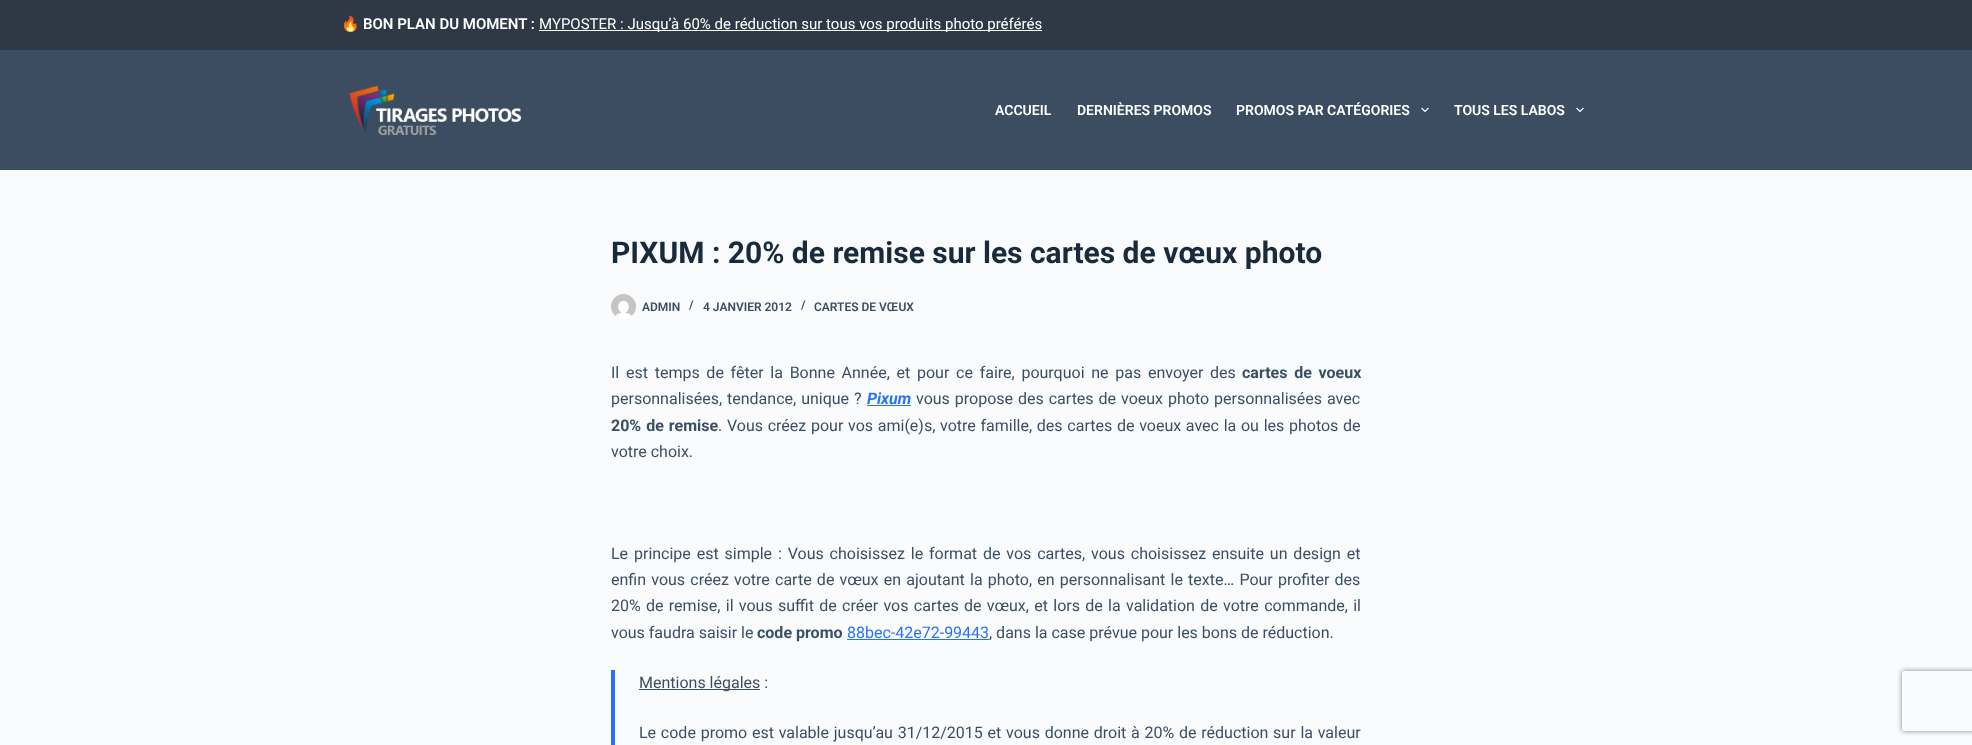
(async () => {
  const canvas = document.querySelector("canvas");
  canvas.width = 1972;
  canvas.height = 745;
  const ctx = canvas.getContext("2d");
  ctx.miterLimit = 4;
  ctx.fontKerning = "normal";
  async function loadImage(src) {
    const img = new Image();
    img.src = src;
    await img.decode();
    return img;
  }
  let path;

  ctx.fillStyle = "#fafbfc";
  ctx.fillRect(0, 0, 1972, 745);
  for (const [x, y, w, h, color] of [
    [0, 0, 1972, 50, "#2e3945"],
    [539, 30, 503, 1, "#ffffff"],
    [0, 50, 1972, 120, "#3c4d62"],
  ]) {
    ctx.fillStyle = color;
    ctx.fillRect(x, y, w, h);
  }
  ctx.drawImage(await loadImage("img/1.png"), 349, 85, 173, 50);
  ctx.drawImage(await loadImage("img/2.png"), 1421, 107, 8, 6);
  ctx.drawImage(await loadImage("img/2.png"), 1576, 107, 8, 6);
  ctx.drawImage(await loadImage("img/3.png"), 611, 294, 25, 25);
  for (const [x, y, w, h, color] of [
    [867, 405, 44, 1, "#2872fa"],
    [847, 639, 142, 1, "#2872fa"],
    [611, 670, 4, 75, "#2872fa"],
    [639, 689, 121, 1, "#3a4f66"],
  ]) {
    ctx.fillStyle = color;
    ctx.fillRect(x, y, w, h);
  }
  ctx.save();
  path = new Path2D("M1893 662H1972V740H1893ZM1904 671H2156C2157 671 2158 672 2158 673V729C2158 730 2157 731 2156 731H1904C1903 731 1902 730 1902 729V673C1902 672 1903 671 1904 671Z");
  ctx.clip(path, "evenodd");
  ctx.fillStyle = "#808080";
  ctx.filter = "blur(2.5px)";
  ctx.beginPath();
  ctx.roundRect(1902, 671, 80, 60, 2);
  ctx.fill();
  ctx.filter = "none";
  ctx.restore();
  ctx.font = "bold 15px Noto Color Emoji";
  ctx.fillStyle = "#ffffff";
  ctx.fillText("🔥", 341, 29);
  ctx.font = "600 15px Roboto";
  ctx.fillText("BON PLAN DU MOMENT :", 363, 29);
  ctx.font = "15px Roboto";
  ctx.fillText("MYPOSTER : Jusqu’à 60% de réduction sur tous vos produits photo préférés", 539, 29);
  ctx.font = "600 14px Roboto";
  for (const [text, x, y] of [
    ["ACCUEIL", 995, 115],
    ["DERNIÈRES PROMOS", 1077, 115],
    ["PROMOS PAR CATÉGORIES", 1236, 115],
    ["TOUS LES LABOS", 1454, 115],
  ]) {
    ctx.fillText(text, x, y);
  }
  ctx.font = "bold 30px Roboto";
  ctx.fillStyle = "#192a3d";
  ctx.fillText("PIXUM : 20% de remise sur les cartes de vœux photo", 611, 263);
  ctx.font = "600 12px Roboto";
  ctx.fillStyle = "#3a4f66";
  for (const [text, x, y] of [
    ["ADMIN", 642, 311],
    ["/", 689, 309],
    ["4 JANVIER 2012", 703, 311],
    ["/", 801, 309],
    ["CARTES DE VŒUX", 814, 311],
  ]) {
    ctx.fillText(text, x, y);
  }
  ctx.wordSpacing = "2.75px";
  ctx.font = "16px Roboto";
  ctx.fillText("Il est temps de fêter la Bonne Année, et pour ce faire, pourquoi ne pas envoyer des", 611, 378);
  ctx.font = "bold 16px Roboto";
  ctx.fillText("cartes de voeux", 1242, 378);
  ctx.wordSpacing = "1px";
  ctx.font = "16px Roboto";
  ctx.fillText("personnalisées, tendance, unique ?", 611, 404);
  ctx.wordSpacing = "0px";
  ctx.font = "italic bold 16px Roboto";
  ctx.fillStyle = "#2872fa";
  ctx.fillText("Pixum", 867, 404);
  ctx.wordSpacing = "1px";
  ctx.font = "16px Roboto";
  ctx.fillStyle = "#3a4f66";
  ctx.fillText("vous propose des cartes de voeux photo personnalisées avec", 916, 404);
  ctx.font = "bold 16px Roboto";
  ctx.fillText("20% de remise", 611, 431);
  ctx.wordSpacing = "0.75px";
  ctx.font = "16px Roboto";
  ctx.fillText(". Vous créez pour vos ami(e)s, votre famille, des cartes de voeux avec la ou les photos de", 718, 431);
  ctx.wordSpacing = "0px";
  ctx.fillText("votre choix.", 611, 457);
  ctx.wordSpacing = "1.9px";
  ctx.fillText("Le principe est simple : Vous choisissez le format de vos cartes, vous choisissez ensuite un design et", 611, 559);
  ctx.wordSpacing = "1.25px";
  ctx.fillText("enfin vous créez votre carte de vœux en ajoutant la photo, en personnalisant le texte… Pour profiter des", 611, 585);
  ctx.wordSpacing = "1.35px";
  ctx.fillText("20% de remise, il vous suffit de créer vos cartes de vœux, et lors de la validation de votre commande, il", 611, 611);
  ctx.wordSpacing = "0px";
  ctx.fillText("vous faudra saisir le", 611, 638);
  ctx.font = "bold 16px Roboto";
  ctx.fillText("code promo", 757, 638);
  ctx.font = "16px Roboto";
  ctx.fillStyle = "#2872fa";
  ctx.fillText("88bec-42e72-99443", 847, 638);
  ctx.fillStyle = "#3a4f66";
  ctx.fillText(", dans la case prévue pour les bons de réduction.", 989, 638);
  ctx.fillText("Mentions légales :", 639, 688);
  ctx.wordSpacing = "0.8px";
  ctx.fillText("Le code promo est valable jusqu’au 31/12/2015 et vous donne droit à 20% de réduction sur la valeur", 639, 738);
})();
